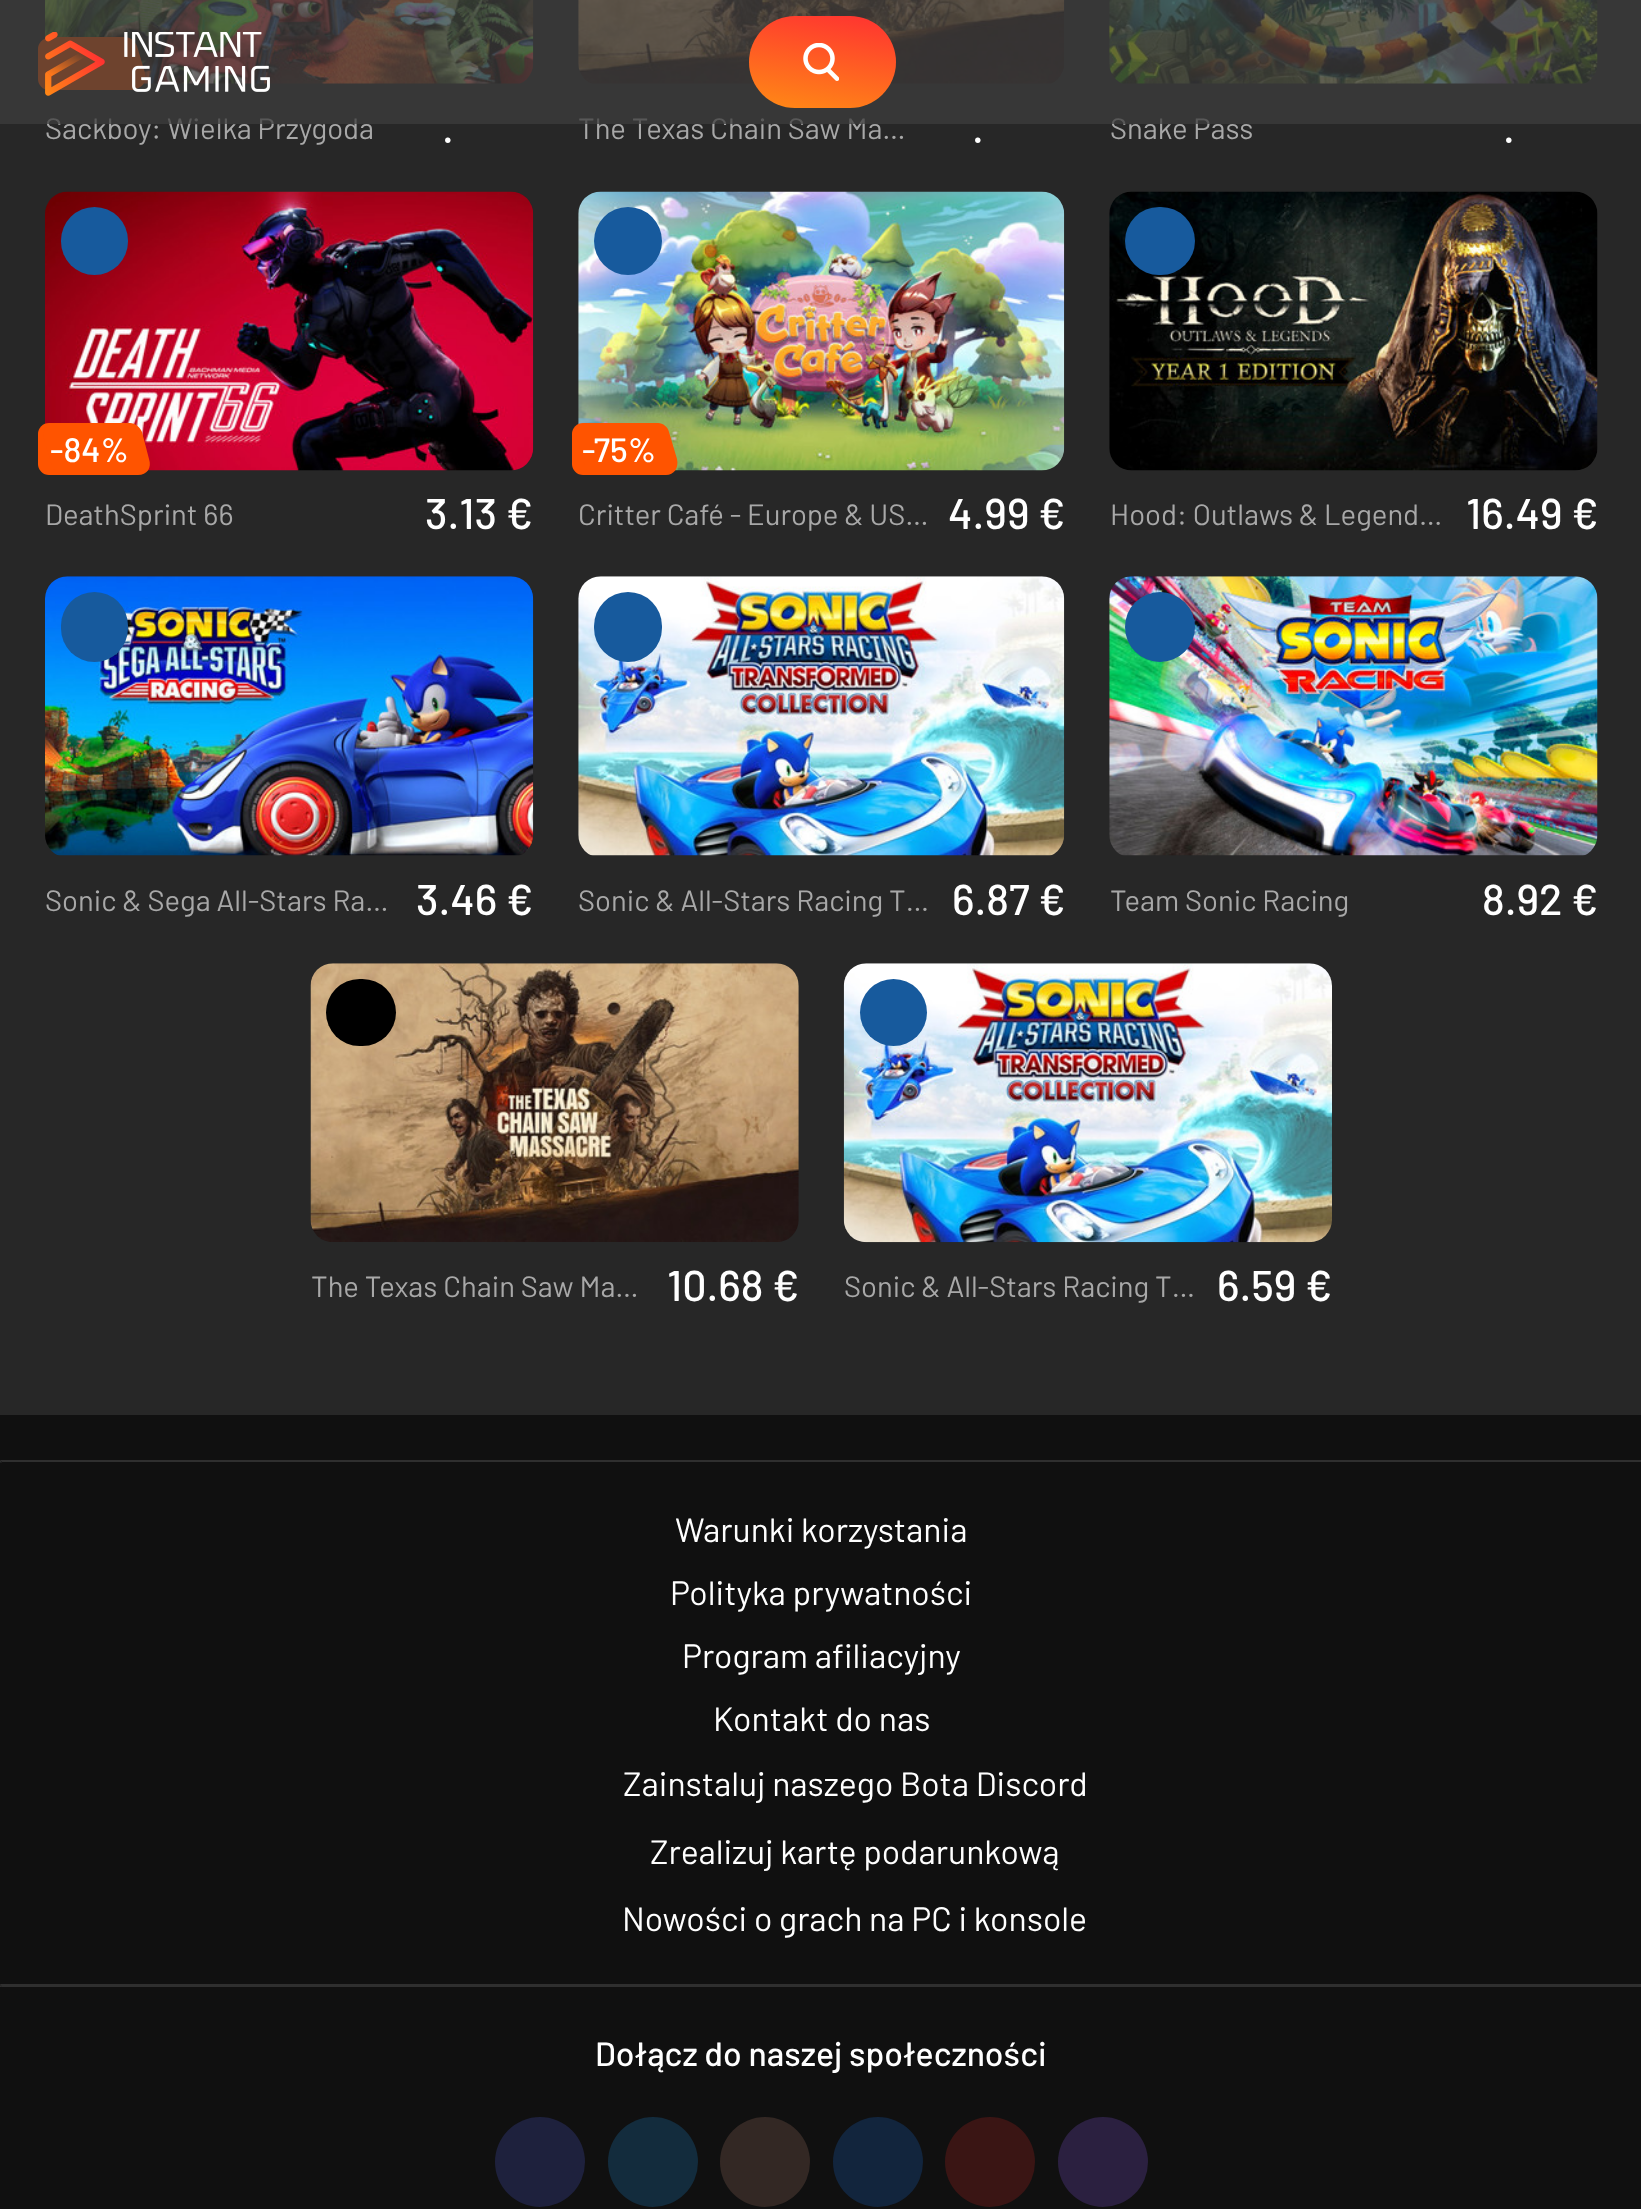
(async () => {
  const canvas = document.querySelector("canvas");
  canvas.width = 1641;
  canvas.height = 2209;
  const ctx = canvas.getContext("2d");
  ctx.miterLimit = 4;
  ctx.fontKerning = "normal";
  async function loadImage(src) {
    const img = new Image();
    img.src = src;
    await img.decode();
    return img;
  }
  let gradient, path;

  ctx.fillStyle = "#272727";
  ctx.fillRect(0, 0, 1641, 2209);
  ctx.drawImage(await loadImage("img/3.png"), 45, 0, 489, 84);
  ctx.fillStyle = "#ff5400";
  ctx.beginPath();
  ctx.roundRect(38, 38, 95, 52, [11, 11, 0, 11]);
  ctx.fill();
  path = new Path2D("M56 37H125C130 37 135 41 137 46L145 73C147 82 142 89 133 89H64C59 89 54 85 52 80L44 53C42 44 47 37 56 37Z");
  ctx.fill(path);
  ctx.drawImage(await loadImage("img/4.png"), 578, 0, 487, 84);
  ctx.drawImage(await loadImage("img/5.png"), 1109, 0, 489, 84);
  ctx.drawImage(await loadImage("img/6.png"), 45, 191, 489, 280);
  ctx.fillStyle = "#175a9d";
  ctx.beginPath();
  ctx.roundRect(61, 207, 67, 68, 33.5);
  ctx.fill();
  ctx.fillStyle = "#ff5400";
  ctx.beginPath();
  ctx.roundRect(38, 423, 99, 52, [11, 11, 0, 11]);
  ctx.fill();
  path = new Path2D("M56 423H130C135 423 140 427 142 432L149 459C152 468 147 475 138 475H64C59 475 54 471 52 466L44 439C42 430 47 423 56 423Z");
  ctx.fill(path);
  ctx.drawImage(await loadImage("img/7.png"), 578, 191, 487, 280);
  ctx.fillStyle = "#175a9d";
  ctx.beginPath();
  ctx.arc(628, 241, 34, 0, Math.PI * 2);
  ctx.fill();
  ctx.fillStyle = "#ff5400";
  ctx.beginPath();
  ctx.roundRect(572, 423, 94, 52, [11, 11, 0, 11]);
  ctx.fill();
  path = new Path2D("M588 423H658C663 423 668 427 669 432L677 459C679 468 674 475 666 475H596C591 475 586 471 585 466L577 439C574 430 579 423 588 423Z");
  ctx.fill(path);
  ctx.drawImage(await loadImage("img/8.png"), 1109, 191, 489, 280);
  ctx.fillStyle = "#175a9d";
  ctx.beginPath();
  ctx.roundRect(1125, 207, 70, 68, 34);
  ctx.fill();
  ctx.drawImage(await loadImage("img/9.png"), 45, 576, 489, 280);
  ctx.beginPath();
  ctx.roundRect(61, 592, 67, 70, 33.5);
  ctx.fill();
  ctx.drawImage(await loadImage("img/10.png"), 578, 576, 487, 280);
  ctx.beginPath();
  ctx.roundRect(594, 592, 68, 70, 34);
  ctx.fill();
  ctx.drawImage(await loadImage("img/11.png"), 1109, 576, 489, 280);
  ctx.beginPath();
  ctx.arc(1160, 627, 35, 0, Math.PI * 2);
  ctx.fill();
  ctx.drawImage(await loadImage("img/12.png"), 310, 963, 489, 279);
  ctx.fillStyle = "#000000";
  ctx.beginPath();
  ctx.roundRect(326, 979, 70, 67, 33.5);
  ctx.fill();
  ctx.drawImage(await loadImage("img/13.png"), 843, 963, 489, 280);
  ctx.fillStyle = "#175a9d";
  ctx.beginPath();
  ctx.arc(893.5, 1012.5, 33.5, 0, Math.PI * 2);
  ctx.fill();
  ctx.fillStyle = "#101010";
  ctx.fillRect(0, 1415, 1641, 794);
  ctx.fillStyle = "#2f2f2f";
  path = new Path2D("M0 1460H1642V1462H2Z");
  ctx.fill(path);
  path = new Path2D("M0 1462.5V1460L2 1462.5Z");
  ctx.fill(path);
  path = new Path2D("M0 1984H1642V1987H2Z");
  ctx.fill(path);
  ctx.fillStyle = "rgba(170, 170, 170, 0.2)";
  path = new Path2D("M0 1987V1984.5L2 1987Z");
  ctx.fill(path);
  ctx.fillStyle = "#1e213d";
  ctx.beginPath();
  ctx.arc(540, 2162, 45, 0, Math.PI * 2);
  ctx.fill();
  ctx.fillStyle = "#132c3d";
  ctx.beginPath();
  ctx.arc(653, 2162, 45, 0, Math.PI * 2);
  ctx.fill();
  ctx.fillStyle = "#332824";
  ctx.beginPath();
  ctx.arc(765, 2162, 45, 0, Math.PI * 2);
  ctx.fill();
  ctx.fillStyle = "#12253d";
  ctx.beginPath();
  ctx.arc(878, 2162, 45, 0, Math.PI * 2);
  ctx.fill();
  ctx.fillStyle = "#3a1514";
  ctx.beginPath();
  ctx.arc(990, 2162, 45, 0, Math.PI * 2);
  ctx.fill();
  ctx.fillStyle = "#2b2040";
  ctx.beginPath();
  ctx.arc(1103, 2162, 45, 0, Math.PI * 2);
  ctx.fill();
  ctx.font = "29.25px Barlow";
  ctx.fillStyle = "#a8a8a8";
  ctx.fillText("Sackboy: Wielka Przygoda", 45, 139);
  ctx.font = "500 43px Barlow";
  ctx.fillStyle = "#ffffff";
  ctx.fillText(".", 442, 143);
  ctx.font = "29.25px Barlow";
  ctx.fillStyle = "#a8a8a8";
  ctx.fillText("The Texas Chain Saw Ma…", 578, 139);
  ctx.font = "500 43px Barlow";
  ctx.fillStyle = "#ffffff";
  ctx.fillText(".", 972, 143);
  ctx.font = "29.25px Barlow";
  ctx.fillStyle = "#a8a8a8";
  ctx.fillText("Snake Pass", 1110, 139);
  ctx.fillStyle = "rgba(61, 61, 61, 0.75)";
  ctx.fillRect(0, 0, 1641, 124);
  ctx.drawImage(await loadImage("img/1.png"), 45, 32, 225, 64);
  gradient = ctx.createLinearGradient(812, 119, 832, 4.6);
  gradient.addColorStop(0, "#ff8a15");
  gradient.addColorStop(1, "#ff3131");
  ctx.fillStyle = gradient;
  ctx.beginPath();
  ctx.roundRect(749, 16, 147, 92, 46);
  ctx.fill();
  ctx.drawImage(await loadImage("img/2.png"), 803, 43, 36, 38);
  ctx.font = "500 43px Barlow";
  ctx.fillStyle = "#ffffff";
  ctx.fillText(".", 1503, 143);
  ctx.font = "500 33.75px Barlow";
  ctx.fillText("-84%", 50, 462);
  ctx.font = "29.25px Barlow";
  ctx.fillStyle = "#a8a8a8";
  ctx.fillText("DeathSprint 66", 45, 525);
  ctx.font = "500 43px Barlow";
  ctx.fillStyle = "#ffffff";
  ctx.fillText("3.13 €", 425, 529);
  ctx.font = "500 33.75px Barlow";
  ctx.fillText("-75%", 582, 462);
  ctx.font = "29.25px Barlow";
  ctx.fillStyle = "#a8a8a8";
  ctx.fillText("Critter Café - Europe & US…", 578, 525);
  ctx.font = "500 43px Barlow";
  ctx.fillStyle = "#ffffff";
  ctx.fillText("4.99 €", 948, 529);
  ctx.font = "29.25px Barlow";
  ctx.fillStyle = "#a8a8a8";
  ctx.fillText("Hood: Outlaws & Legend…", 1110, 525);
  ctx.font = "500 43px Barlow";
  ctx.fillStyle = "#ffffff";
  ctx.fillText("16.49 €", 1466, 529);
  ctx.font = "29.25px Barlow";
  ctx.fillStyle = "#a8a8a8";
  ctx.fillText("Sonic & Sega All-Stars Ra…", 45, 911);
  ctx.font = "500 43px Barlow";
  ctx.fillStyle = "#ffffff";
  ctx.fillText("3.46 €", 416, 915);
  ctx.font = "29.25px Barlow";
  ctx.fillStyle = "#a8a8a8";
  ctx.fillText("Sonic & All-Stars Racing T…", 578, 911);
  ctx.font = "500 43px Barlow";
  ctx.fillStyle = "#ffffff";
  ctx.fillText("6.87 €", 952, 915);
  ctx.font = "29.25px Barlow";
  ctx.fillStyle = "#a8a8a8";
  ctx.fillText("Team Sonic Racing", 1110, 911);
  ctx.font = "500 43px Barlow";
  ctx.fillStyle = "#ffffff";
  ctx.fillText("8.92 €", 1482, 915);
  ctx.font = "29.25px Barlow";
  ctx.fillStyle = "#a8a8a8";
  ctx.fillText("The Texas Chain Saw Ma…", 311, 1297);
  ctx.font = "500 43px Barlow";
  ctx.fillStyle = "#ffffff";
  ctx.fillText("10.68 €", 667, 1301);
  ctx.font = "29.25px Barlow";
  ctx.fillStyle = "#a8a8a8";
  ctx.fillText("Sonic & All-Stars Racing T…", 844, 1297);
  ctx.font = "500 43px Barlow";
  ctx.fillStyle = "#ffffff";
  ctx.fillText("6.59 €", 1217, 1301);
  ctx.font = "33.75px Barlow";
  for (const [text, x, y] of [
    ["Warunki korzystania", 675, 1542],
    ["Polityka prywatności", 670, 1605],
    ["Program afiliacyjny", 682, 1668],
    ["Kontakt do nas", 713, 1731],
    ["Zainstaluj naszego Bota Discord", 623, 1796],
    ["Zrealizuj kartę podarunkową", 650, 1864],
    ["Nowości o grach na PC i konsole", 622, 1931],
  ]) {
    ctx.fillText(text, x, y);
  }
  ctx.font = "500 33.75px Barlow";
  ctx.fillText("Dołącz do naszej społeczności", 595, 2066);
})();
